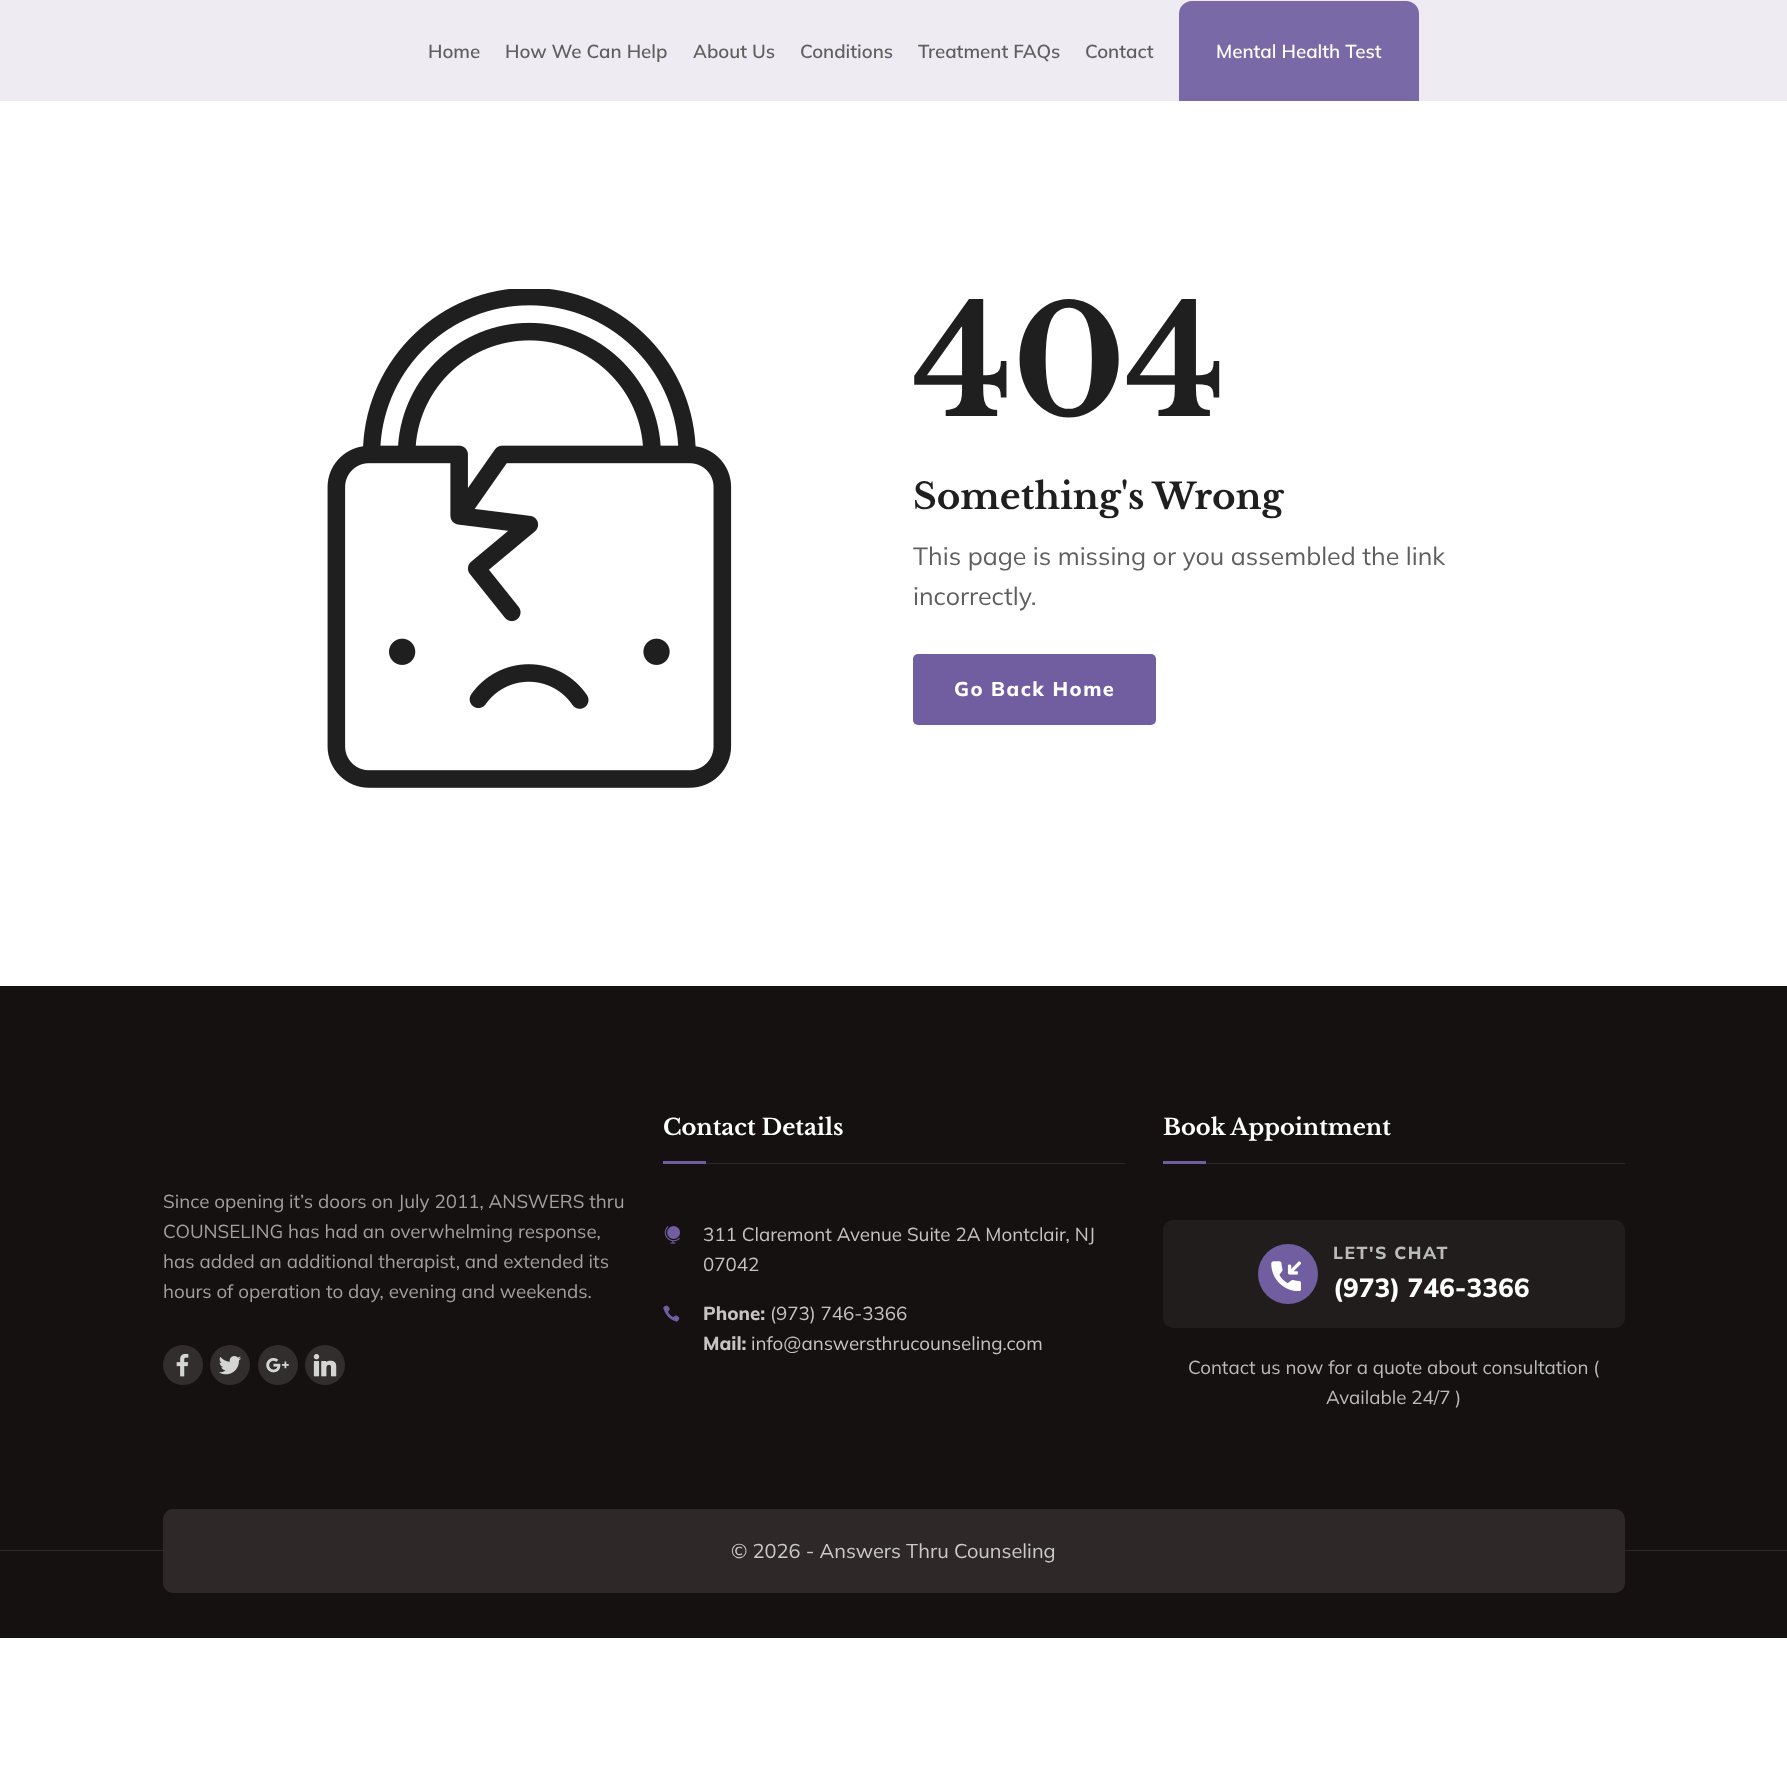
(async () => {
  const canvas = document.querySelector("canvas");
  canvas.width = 1787;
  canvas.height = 1791;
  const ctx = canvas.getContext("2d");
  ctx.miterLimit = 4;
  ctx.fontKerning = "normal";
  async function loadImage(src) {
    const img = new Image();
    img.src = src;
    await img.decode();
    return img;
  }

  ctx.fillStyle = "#ffffff";
  ctx.fillRect(0, 0, 1787, 1791);
  ctx.fillStyle = "#eeecf2";
  ctx.fillRect(0, 0, 1787, 101);
  ctx.fillStyle = "#7969a6";
  ctx.beginPath();
  ctx.roundRect(1179, 1, 240, 100, [13, 13, 0, 0]);
  ctx.fill();
  ctx.drawImage(await loadImage("img/1.png"), 327, 289, 405, 499);
  ctx.fillStyle = "#705ea1";
  ctx.beginPath();
  ctx.roundRect(913, 654, 243, 71, 5);
  ctx.fill();
  ctx.fillStyle = "#151110";
  ctx.fillRect(0, 986, 1787, 564);
  ctx.fillStyle = "#312e2d";
  ctx.beginPath();
  ctx.arc(183, 1365, 20, 0, Math.PI * 2);
  ctx.fill();
  ctx.drawImage(await loadImage("img/2.png"), 176, 1353, 13, 24);
  ctx.beginPath();
  ctx.arc(230, 1365, 20, 0, Math.PI * 2);
  ctx.fill();
  ctx.drawImage(await loadImage("img/3.png"), 219, 1356, 23, 19);
  ctx.beginPath();
  ctx.arc(278, 1365, 20, 0, Math.PI * 2);
  ctx.fill();
  ctx.drawImage(await loadImage("img/4.png"), 266, 1358, 23, 15);
  ctx.beginPath();
  ctx.arc(325, 1365, 20, 0, Math.PI * 2);
  ctx.fill();
  ctx.drawImage(await loadImage("img/5.png"), 313, 1354, 24, 23);
  ctx.fillStyle = "#705ea1";
  ctx.fillRect(663, 1161, 43, 3);
  ctx.fillStyle = "#2c2928";
  ctx.fillRect(706, 1163, 419, 1);
  ctx.drawImage(await loadImage("img/6.png"), 664, 1226, 16, 18);
  ctx.drawImage(await loadImage("img/7.png"), 663, 1305, 17, 17);
  ctx.fillStyle = "#705ea1";
  ctx.fillRect(1163, 1161, 43, 3);
  ctx.fillStyle = "#2c2928";
  ctx.fillRect(1206, 1163, 419, 1);
  ctx.fillStyle = "#211d1c";
  ctx.beginPath();
  ctx.roundRect(1163, 1220, 462, 108, 10);
  ctx.fill();
  ctx.fillStyle = "#705ea1";
  ctx.beginPath();
  ctx.arc(1288, 1274, 30, 0, Math.PI * 2);
  ctx.fill();
  ctx.drawImage(await loadImage("img/8.png"), 1271, 1261, 30, 30);
  ctx.fillStyle = "#151110";
  ctx.fillRect(0, 1551, 1787, 87);
  ctx.fillStyle = "#2c2928";
  ctx.fillRect(0, 1550, 1787, 1);
  ctx.fillStyle = "#2e2928";
  ctx.beginPath();
  ctx.roundRect(163, 1509, 1462, 84, 10);
  ctx.fill();
  ctx.font = "600 18.75px Mulish";
  ctx.fillStyle = "#5f5f5f";
  for (const [text, x, y] of [
    ["Home", 428, 58],
    ["How We Can Help", 505, 58],
    ["About Us", 693, 58],
    ["Conditions", 800, 58],
    ["Treatment FAQs", 918, 58],
    ["Contact", 1085, 58],
  ]) {
    ctx.fillText(text, x, y);
  }
  ctx.fillStyle = "#ffffff";
  ctx.fillText("Mental Health Test", 1216, 58);
  ctx.font = "bold 150px Libre Baskerville";
  ctx.fillStyle = "#1f1f1f";
  ctx.fillText("404", 913, 416);
  ctx.font = "bold 35.75px Libre Baskerville";
  ctx.fillText("Something's Wrong", 913, 509);
  ctx.font = "25px Mulish";
  ctx.fillStyle = "#5f5f5f";
  ctx.fillText("This page is missing or you assembled the link", 913, 565);
  ctx.fillText("incorrectly.", 913, 605);
  ctx.letterSpacing = "1.5px";
  ctx.font = "800 20px Mulish";
  ctx.fillStyle = "#ffffff";
  ctx.fillText("Go Back Home", 954, 696);
  ctx.letterSpacing = "0px";
  ctx.font = "18.75px Mulish";
  ctx.fillStyle = "#a1a09f";
  for (const [text, x, y] of [
    ["Since opening it’s doors on July 2011, ANSWERS thru", 163, 1208],
    ["COUNSELING has had an overwhelming response,", 163, 1238],
    ["has added an additional therapist, and extended its", 163, 1268],
    ["hours of operation to day, evening and weekends.", 163, 1298],
  ]) {
    ctx.fillText(text, x, y);
  }
  ctx.font = "bold 22.5px Libre Baskerville";
  ctx.fillStyle = "#ffffff";
  ctx.fillText("Contact Details", 663, 1135);
  ctx.font = "18.75px Mulish";
  ctx.fillStyle = "#c5c4c3";
  ctx.fillText("311 Claremont Avenue Suite 2A Montclair, NJ", 703, 1241);
  ctx.fillText("07042", 703, 1271);
  ctx.font = "800 18.75px Mulish";
  ctx.fillText("Phone:", 703, 1320);
  ctx.font = "18.75px Mulish";
  ctx.fillText("(973) 746-3366", 770, 1320);
  ctx.font = "800 18.75px Mulish";
  ctx.fillText("Mail:", 703, 1350);
  ctx.font = "18.75px Mulish";
  ctx.fillText("info@answersthrucounseling.com", 751, 1350);
  ctx.font = "bold 22.5px Libre Baskerville";
  ctx.fillStyle = "#ffffff";
  ctx.fillText("Book Appointment", 1163, 1135);
  ctx.letterSpacing = "1.5px";
  ctx.font = "800 17.5px Mulish";
  ctx.fillStyle = "#bcbbbb";
  ctx.fillText("LET'S CHAT", 1333, 1259);
  ctx.letterSpacing = "0px";
  ctx.font = "800 26.25px Mulish";
  ctx.fillStyle = "#ffffff";
  ctx.fillText("(973) 746-3366", 1333, 1297);
  ctx.font = "18.75px Mulish";
  ctx.fillStyle = "#bcbbbb";
  ctx.fillText("Contact us now for a quote about consultation (", 1188, 1374);
  ctx.fillText("Available 24/7 )", 1326, 1404);
  ctx.font = "20px Mulish";
  ctx.fillStyle = "#cbcac9";
  ctx.fillText("© 2026 - Answers Thru Counseling", 731, 1558);
})();
